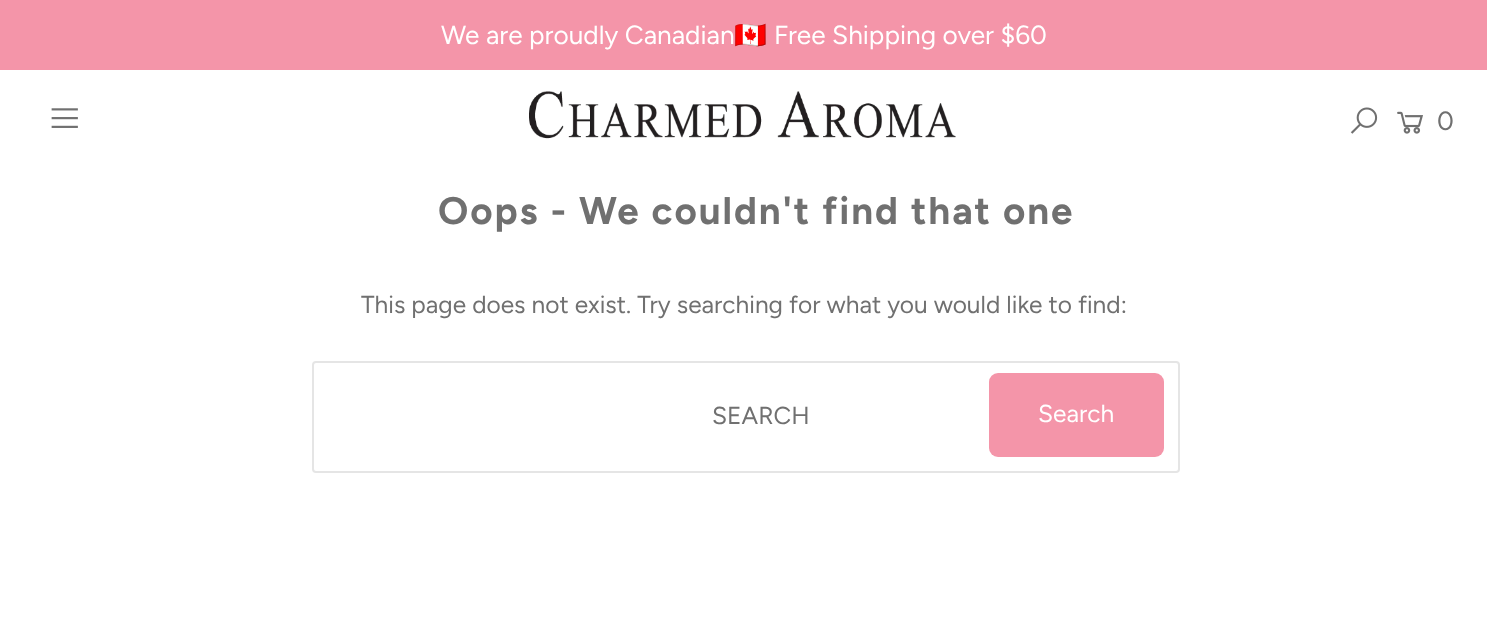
(async () => {
  const canvas = document.querySelector("canvas");
  canvas.width = 1487;
  canvas.height = 633;
  const ctx = canvas.getContext("2d");
  ctx.miterLimit = 4;
  ctx.fontKerning = "normal";
  async function loadImage(src) {
    const img = new Image();
    img.src = src;
    await img.decode();
    return img;
  }

  ctx.fillStyle = "#ffffff";
  ctx.fillRect(0, 0, 1487, 633);
  ctx.fillStyle = "#f495a9";
  ctx.fillRect(0, 0, 1487, 70);
  ctx.drawImage(await loadImage("img/1.png"), 51, 108, 27, 20);
  ctx.drawImage(await loadImage("img/2.png"), 529, 91, 427, 48);
  ctx.drawImage(await loadImage("img/3.png"), 1350, 107, 28, 27);
  ctx.drawImage(await loadImage("img/4.png"), 1397, 111, 26, 23);
  ctx.beginPath();
  ctx.roundRect(313, 362, 866, 110, 3);
  ctx.strokeStyle = "#e5e5e5";
  ctx.lineWidth = 2;
  ctx.stroke();
  ctx.beginPath();
  ctx.roundRect(989, 373, 175, 84, 9);
  ctx.fill();
  ctx.font = "26.25px Figtree";
  ctx.fillStyle = "#ffffff";
  ctx.fillText("We are proudly Canadian", 441, 44);
  ctx.font = "26.25px Noto Color Emoji";
  ctx.fillText("🇨🇦", 734, 44);
  ctx.font = "26.25px Figtree";
  ctx.fillText("Free Shipping over $60", 774, 44);
  ctx.fillStyle = "#707070";
  ctx.fillText("0", 1437, 130);
  ctx.letterSpacing = "1.9px";
  ctx.font = "bold 38.5px Figtree";
  ctx.fillText("Oops - We couldn't find that one", 438, 224);
  ctx.letterSpacing = "0px";
  ctx.font = "24.5px Figtree";
  ctx.fillText("This page does not exist. Try searching for what you would like to find:", 361, 313);
  ctx.fillText("SEARCH", 712, 424);
  ctx.fillStyle = "#ffffff";
  ctx.fillText("Search", 1038, 422);
})();
